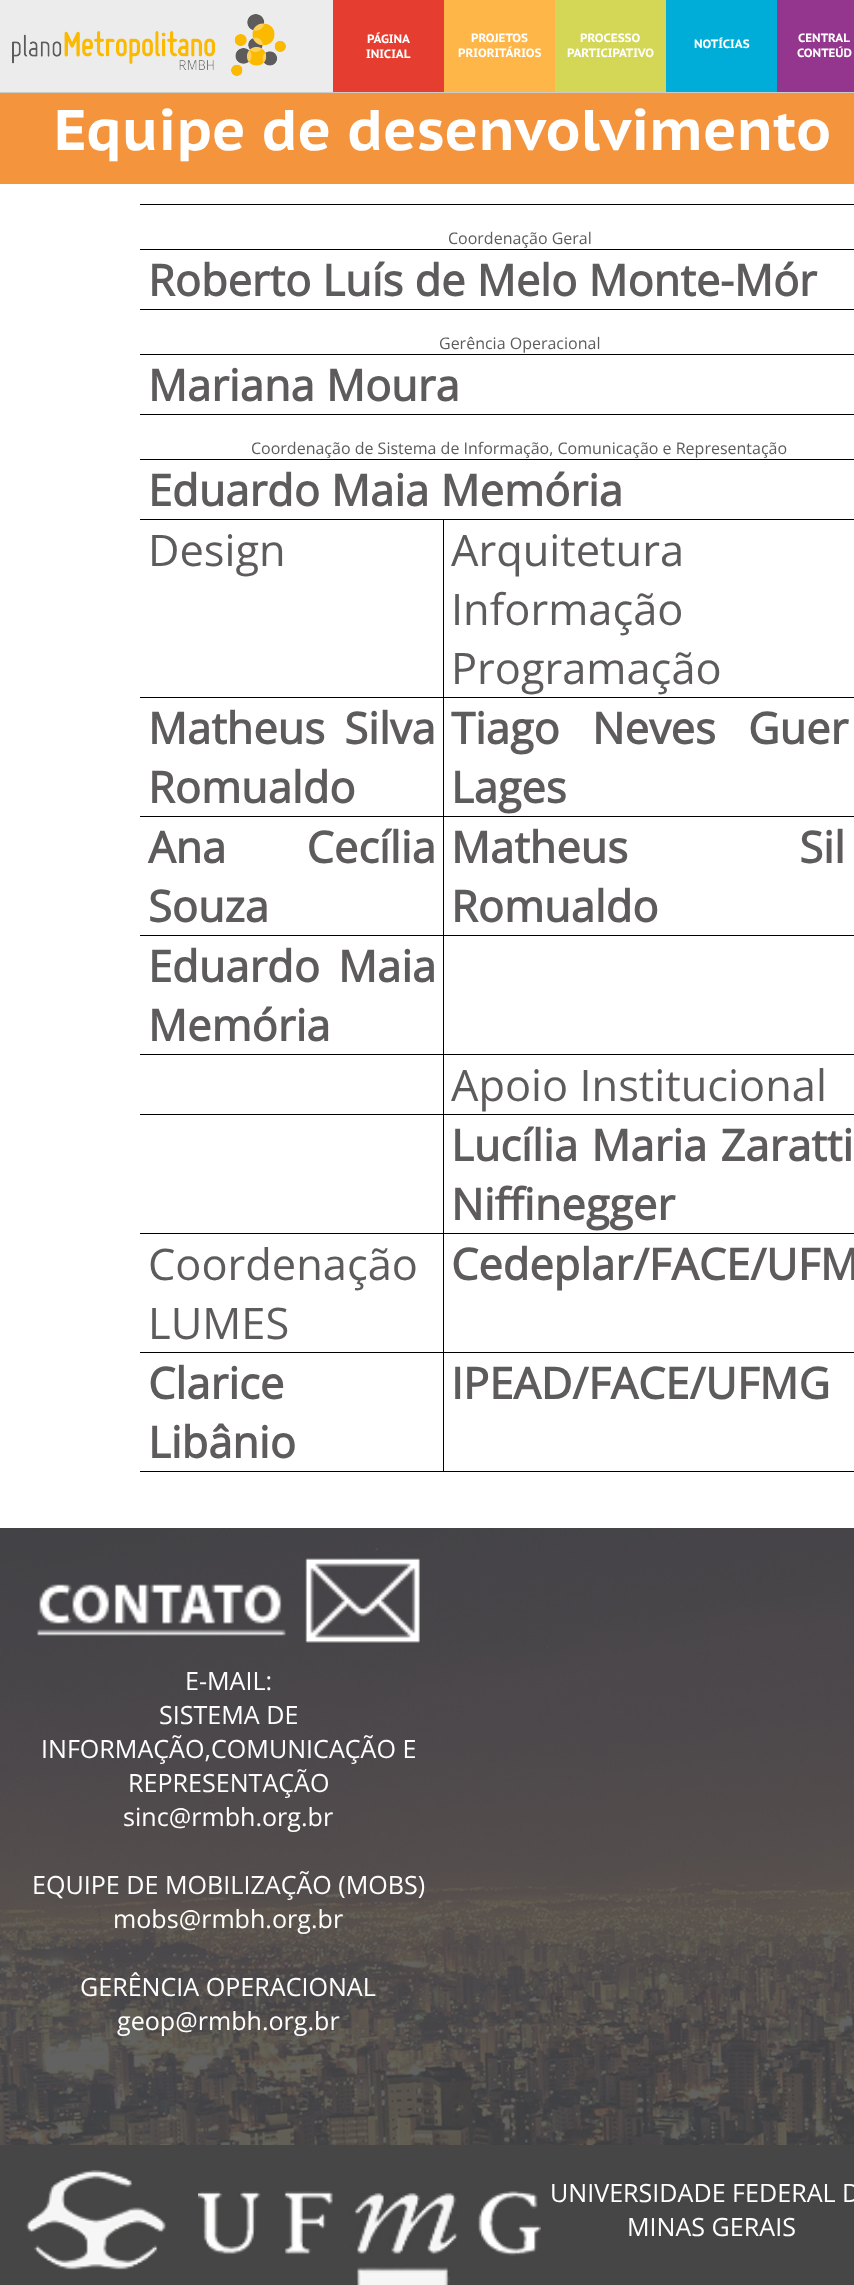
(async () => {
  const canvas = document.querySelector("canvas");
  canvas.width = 854;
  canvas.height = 2285;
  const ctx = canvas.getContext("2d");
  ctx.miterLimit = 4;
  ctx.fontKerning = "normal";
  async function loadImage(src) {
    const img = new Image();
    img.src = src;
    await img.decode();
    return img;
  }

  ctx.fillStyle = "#ffffff";
  ctx.fillRect(0, 0, 854, 2285);
  ctx.fillStyle = "#ececec";
  ctx.fillRect(0, 0, 333, 92);
  ctx.fillStyle = "#cccccc";
  ctx.fillRect(0, 92, 854, 1);
  ctx.drawImage(await loadImage("img/1.png"), 12, 14, 274, 62);
  for (const [x, y, w, h, color] of [
    [333, 0, 111, 92, "#e53e30"],
    [444, 0, 111, 92, "#ffb648"],
    [555, 0, 111, 92, "#d4d756"],
    [666, 0, 111, 92, "#00add8"],
    [777, 0, 77, 92, "#94368d"],
    [0, 93, 854, 91, "#f4943d"],
    [140, 204, 714, 1, "#000000"],
    [140, 249, 714, 1, "#000000"],
    [140, 309, 714, 1, "#000000"],
    [140, 354, 714, 1, "#000000"],
    [140, 414, 714, 1, "#000000"],
    [140, 459, 714, 1, "#000000"],
    [443, 1471, 411, 1, "#000000"],
    [443, 1352, 1, 120, "#000000"],
    [443, 1352, 411, 1, "#000000"],
    [443, 1233, 1, 120, "#000000"],
    [443, 1233, 411, 1, "#000000"],
    [443, 1114, 1, 120, "#000000"],
    [443, 1114, 411, 1, "#000000"],
    [443, 1054, 1, 61, "#000000"],
    [443, 1054, 411, 1, "#000000"],
    [443, 935, 1, 120, "#000000"],
    [443, 935, 411, 1, "#000000"],
    [443, 816, 1, 120, "#000000"],
    [443, 816, 411, 1, "#000000"],
    [443, 697, 1, 120, "#000000"],
    [443, 697, 411, 1, "#000000"],
    [443, 519, 1, 179, "#000000"],
    [140, 519, 714, 1, "#000000"],
    [140, 697, 304, 1, "#000000"],
    [140, 816, 304, 1, "#000000"],
    [140, 935, 304, 1, "#000000"],
    [140, 1054, 304, 1, "#000000"],
    [140, 1114, 304, 1, "#000000"],
    [140, 1233, 304, 1, "#000000"],
    [140, 1352, 304, 1, "#000000"],
    [140, 1471, 304, 1, "#000000"],
  ]) {
    ctx.fillStyle = color;
    ctx.fillRect(x, y, w, h);
  }
  ctx.drawImage(await loadImage("img/2.png"), 0, 1528, 854, 617);
  ctx.fillStyle = "rgba(70, 70, 70, 0.85)";
  ctx.fillRect(0, 1528, 854, 617);
  ctx.drawImage(await loadImage("img/3.png"), 37, 1558, 383, 85);
  ctx.fillStyle = "#464646";
  ctx.fillRect(0, 2145, 854, 140);
  ctx.drawImage(await loadImage("img/4.png"), 25, 2170, 141, 100);
  ctx.drawImage(await loadImage("img/5.png"), 198, 2190, 343, 95);
  ctx.font = "bold 12px PT Sans Caption";
  ctx.fillStyle = "#ffffff";
  for (const [text, x, y] of [
    ["PÁGINA", 367, 43],
    ["INICIAL", 366, 58],
    ["PROJETOS", 471, 42],
    ["PRIORITÁRIOS", 458, 57],
    ["PROCESSO", 580, 42],
    ["PARTICIPATIVO", 567, 57],
    ["NOTÍCIAS", 694, 48],
    ["CENTRAL", 798, 42],
    ["CONTEÚD", 797, 57],
  ]) {
    ctx.fillText(text, x, y);
  }
  ctx.font = "bold 57.1px PT Sans Caption";
  ctx.fillText("Equipe de desenvolvimento", 54, 150);
  ctx.font = "16px Open Sans";
  ctx.fillStyle = "#5e5b5c";
  ctx.fillText("Coordenação Geral", 448, 244);
  ctx.font = "bold 43.4px Open Sans";
  ctx.fillText("Roberto Luís de Melo Monte-Mór", 148, 296);
  ctx.font = "16px Open Sans";
  ctx.fillText("Gerência Operacional", 439, 349);
  ctx.font = "bold 43.4px Open Sans";
  ctx.fillText("Mariana Moura", 148, 401);
  ctx.font = "16px Open Sans";
  ctx.fillText("Coordenação de Sistema de Informação, Comunicação e Representação", 251, 454);
  ctx.font = "bold 43.4px Open Sans";
  ctx.fillText("Eduardo Maia Memória", 148, 506);
  ctx.font = "43.4px Open Sans";
  ctx.fillText("Design", 148, 566);
  ctx.wordSpacing = "145px";
  ctx.fillText("Arquitetura", 451, 566);
  ctx.wordSpacing = "0px";
  ctx.fillText("Informação", 451, 625);
  ctx.fillText("Programação", 451, 684);
  ctx.wordSpacing = "8px";
  ctx.font = "bold 43.4px Open Sans";
  ctx.fillText("Matheus Silva", 148, 744);
  ctx.wordSpacing = "0px";
  ctx.fillText("Romualdo", 148, 803);
  ctx.wordSpacing = "21px";
  ctx.fillText("Tiago Neves Guer", 451, 744);
  ctx.wordSpacing = "0px";
  ctx.fillText("Lages", 451, 803);
  ctx.wordSpacing = "69px";
  ctx.fillText("Ana Cecília", 148, 863);
  ctx.wordSpacing = "0px";
  ctx.fillText("Souza", 148, 922);
  ctx.wordSpacing = "160px";
  ctx.fillText("Matheus Sil", 451, 863);
  ctx.wordSpacing = "0px";
  ctx.fillText("Romualdo", 451, 922);
  ctx.wordSpacing = "7px";
  ctx.fillText("Eduardo Maia", 148, 982);
  ctx.wordSpacing = "0px";
  ctx.fillText("Memória", 148, 1041);
  ctx.font = "43.4px Open Sans";
  ctx.fillText("Apoio Institucional", 451, 1101);
  ctx.wordSpacing = "2px";
  ctx.font = "bold 43.4px Open Sans";
  ctx.fillText("Lucília Maria Zaratti", 451, 1161);
  ctx.wordSpacing = "0px";
  ctx.fillText("Niffinegger", 451, 1220);
  ctx.font = "43.4px Open Sans";
  ctx.fillText("Coordenação", 148, 1280);
  ctx.fillText("LUMES", 148, 1339);
  ctx.font = "bold 43.4px Open Sans";
  for (const [text, x, y] of [
    ["Cedeplar/FACE/UFM", 451, 1280],
    ["Clarice", 148, 1399],
    ["Libânio", 148, 1458],
    ["IPEAD/FACE/UFMG", 451, 1399],
  ]) {
    ctx.fillText(text, x, y);
  }
  ctx.font = "25.1px Open Sans";
  ctx.fillStyle = "#ffffff";
  for (const [text, x, y] of [
    ["E-MAIL:", 185, 1690],
    ["SISTEMA DE", 159, 1724],
    ["INFORMAÇÃO,COMUNICAÇÃO E", 41, 1758],
    ["REPRESENTAÇÃO", 128, 1792],
    ["sinc@rmbh.org.br", 123, 1826],
    ["EQUIPE DE MOBILIZAÇÃO (MOBS)", 32, 1894],
    ["mobs@rmbh.org.br", 113, 1928],
    ["GERÊNCIA OPERACIONAL", 80, 1996],
    ["geop@rmbh.org.br", 117, 2030],
    ["UNIVERSIDADE FEDERAL D", 550, 2202],
    ["MINAS GERAIS", 627, 2236],
  ]) {
    ctx.fillText(text, x, y);
  }
})();
